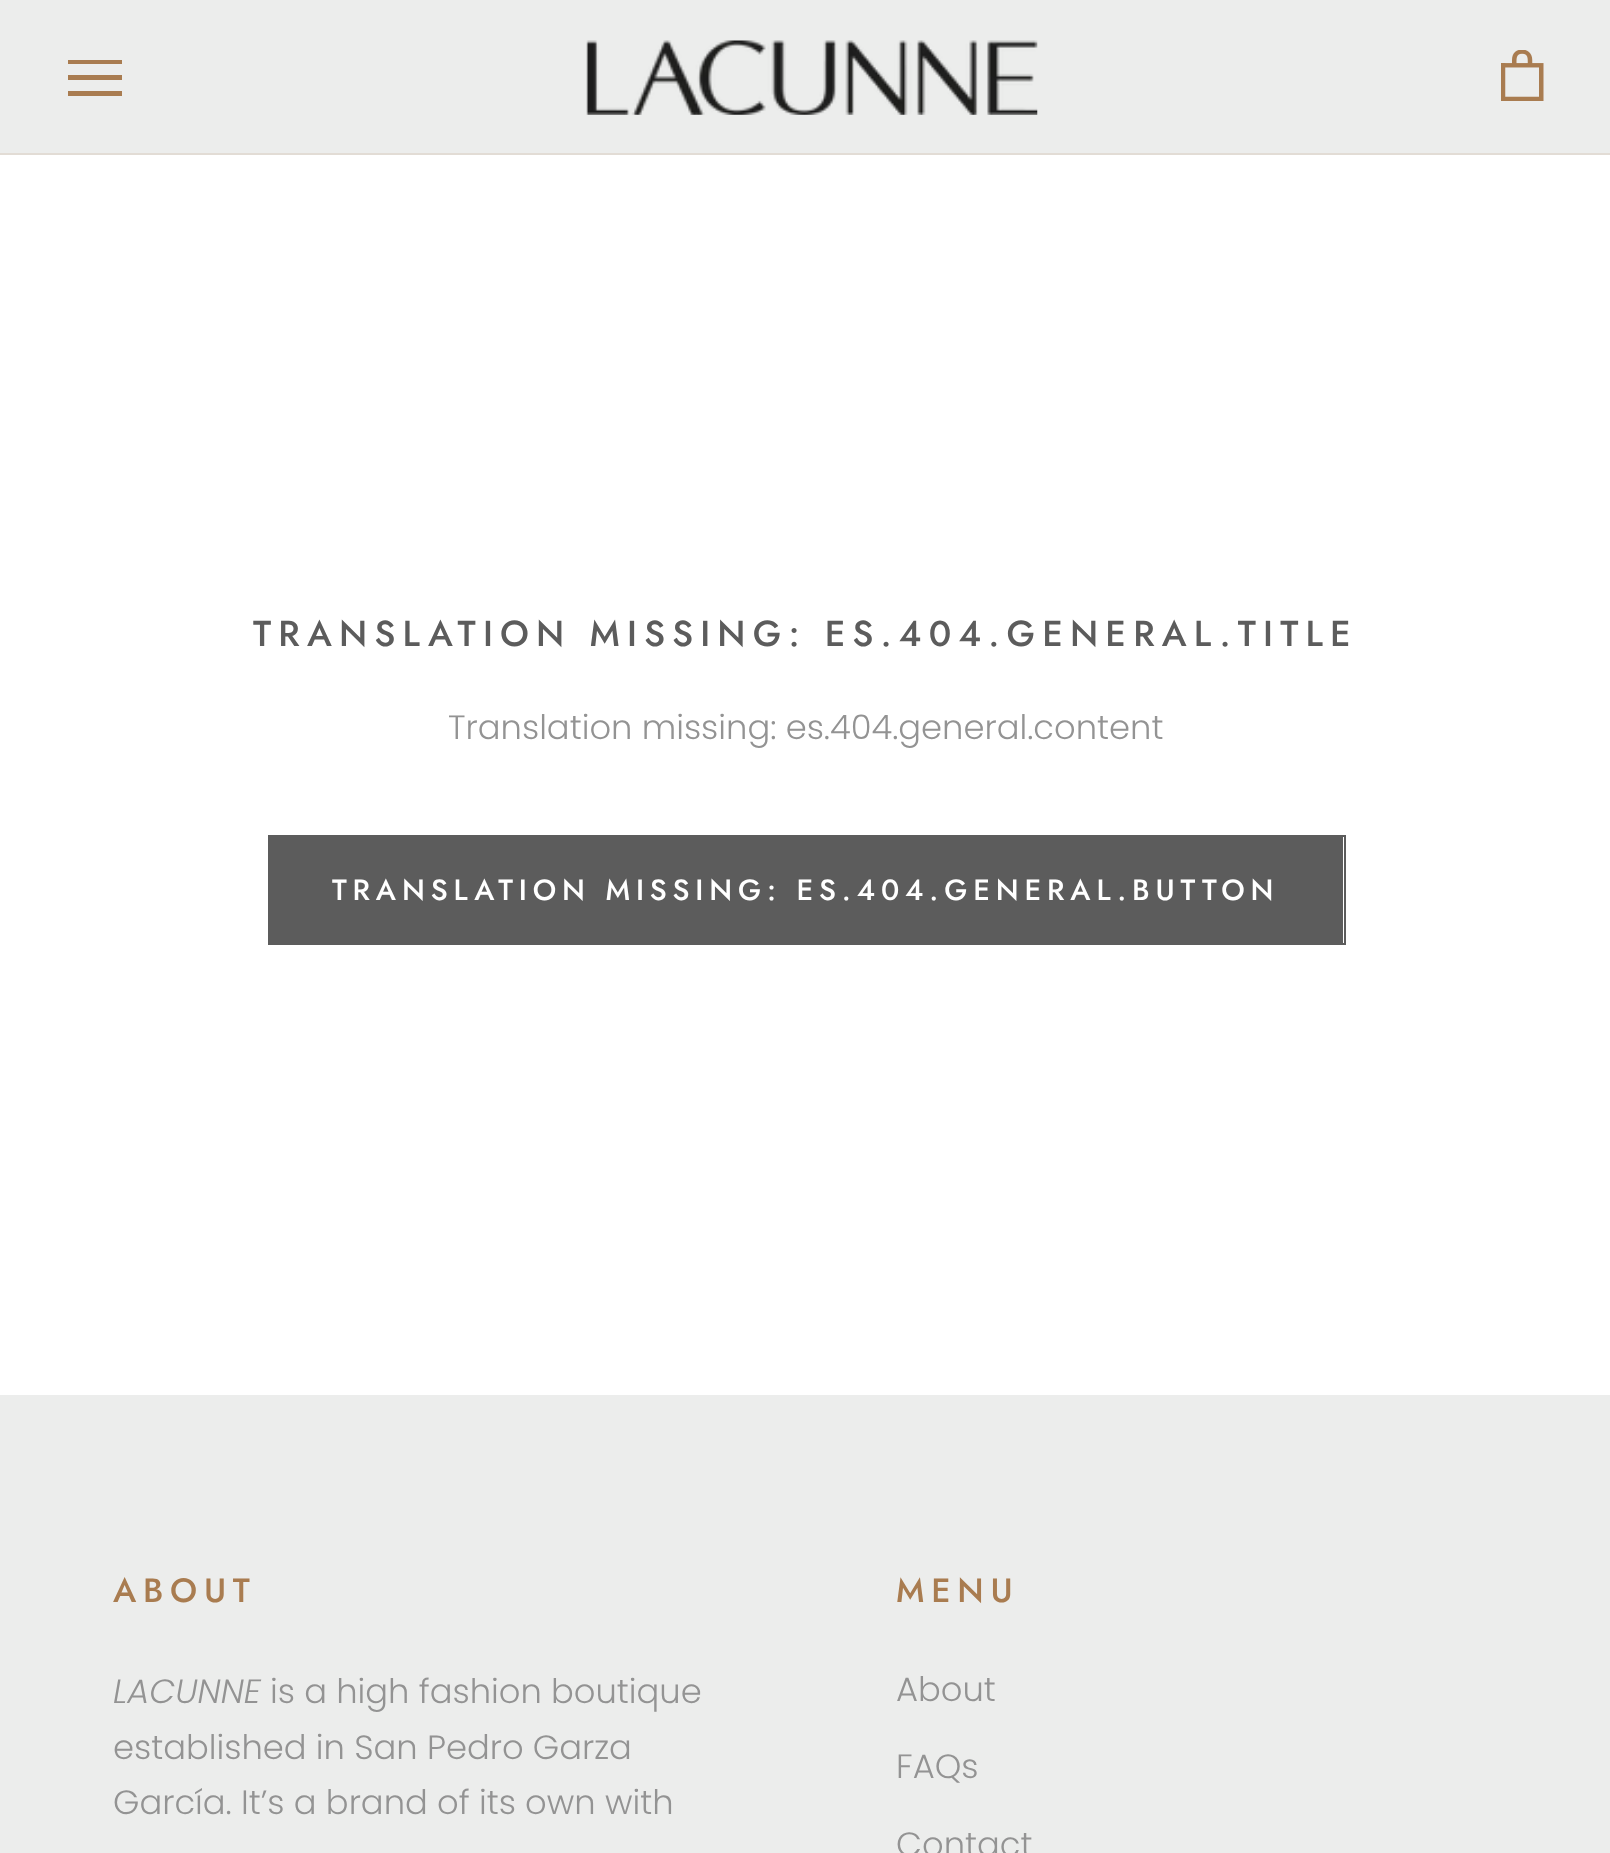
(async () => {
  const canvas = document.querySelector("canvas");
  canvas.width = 1610;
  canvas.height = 1853;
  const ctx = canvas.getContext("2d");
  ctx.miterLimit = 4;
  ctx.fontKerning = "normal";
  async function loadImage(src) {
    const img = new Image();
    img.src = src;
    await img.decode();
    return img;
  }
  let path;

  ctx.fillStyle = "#ffffff";
  ctx.fillRect(0, 0, 1610, 1853);
  ctx.fillStyle = "#ecedec";
  ctx.fillRect(0, 0, 1610, 153);
  ctx.fillStyle = "#e2dcd5";
  ctx.fillRect(0, 153, 1610, 2);
  ctx.fillStyle = "#a97c50";
  path = new Path2D("M68 96V91H122V96ZM68 75H122V80H68ZM68 60H122V64H68Z");
  ctx.fill(path);
  ctx.drawImage(await loadImage("img/1.png"), 586, 40, 452, 75);
  ctx.drawImage(await loadImage("img/2.png"), 1501, 50, 43, 51);
  ctx.strokeStyle = "#5c5c5c";
  ctx.lineWidth = 2;
  ctx.strokeRect(269, 836, 1076, 108);
  ctx.fillStyle = "#5c5c5c";
  ctx.fillRect(270, 837, 1073, 106);
  ctx.fillStyle = "#ecedec";
  ctx.fillRect(0, 1395, 1610, 458);
  ctx.letterSpacing = "7.2px";
  ctx.font = "500 36px Jost";
  ctx.fillStyle = "#5c5c5c";
  ctx.fillText("TRANSLATION MISSING: ES.404.GENERAL.TITLE", 253, 646);
  ctx.letterSpacing = "0px";
  ctx.font = "300 33.75px Poppins";
  ctx.fillStyle = "#939393";
  ctx.fillText("Translation missing: es.404.general.content", 448, 739);
  ctx.letterSpacing = "5.85px";
  ctx.font = "500 29.25px Jost";
  ctx.fillStyle = "#ffffff";
  ctx.fillText("TRANSLATION MISSING: ES.404.GENERAL.BUTTON", 332, 900);
  ctx.letterSpacing = "6.75px";
  ctx.font = "500 33.75px Jost";
  ctx.fillStyle = "#a97c50";
  ctx.fillText("ABOUT", 113, 1602);
  ctx.letterSpacing = "0px";
  ctx.font = "italic 300 33.75px Poppins";
  ctx.fillStyle = "#939393";
  ctx.fillText("LACUNNE", 113, 1703);
  ctx.font = "300 33.75px Poppins";
  for (const [text, x, y] of [
    ["is a high fashion boutique", 270, 1703],
    ["established in San Pedro Garza", 113, 1759],
    ["García. It’s a brand of its own with", 113, 1814],
  ]) {
    ctx.fillText(text, x, y);
  }
  ctx.letterSpacing = "6.75px";
  ctx.font = "500 33.75px Jost";
  ctx.fillStyle = "#a97c50";
  ctx.fillText("MENU", 896, 1602);
  ctx.letterSpacing = "0px";
  ctx.font = "300 33.75px Poppins";
  ctx.fillStyle = "#939393";
  for (const [text, x, y] of [
    ["About", 896, 1701],
    ["FAQs", 896, 1778],
    ["Contact", 896, 1856],
  ]) {
    ctx.fillText(text, x, y);
  }
})();
